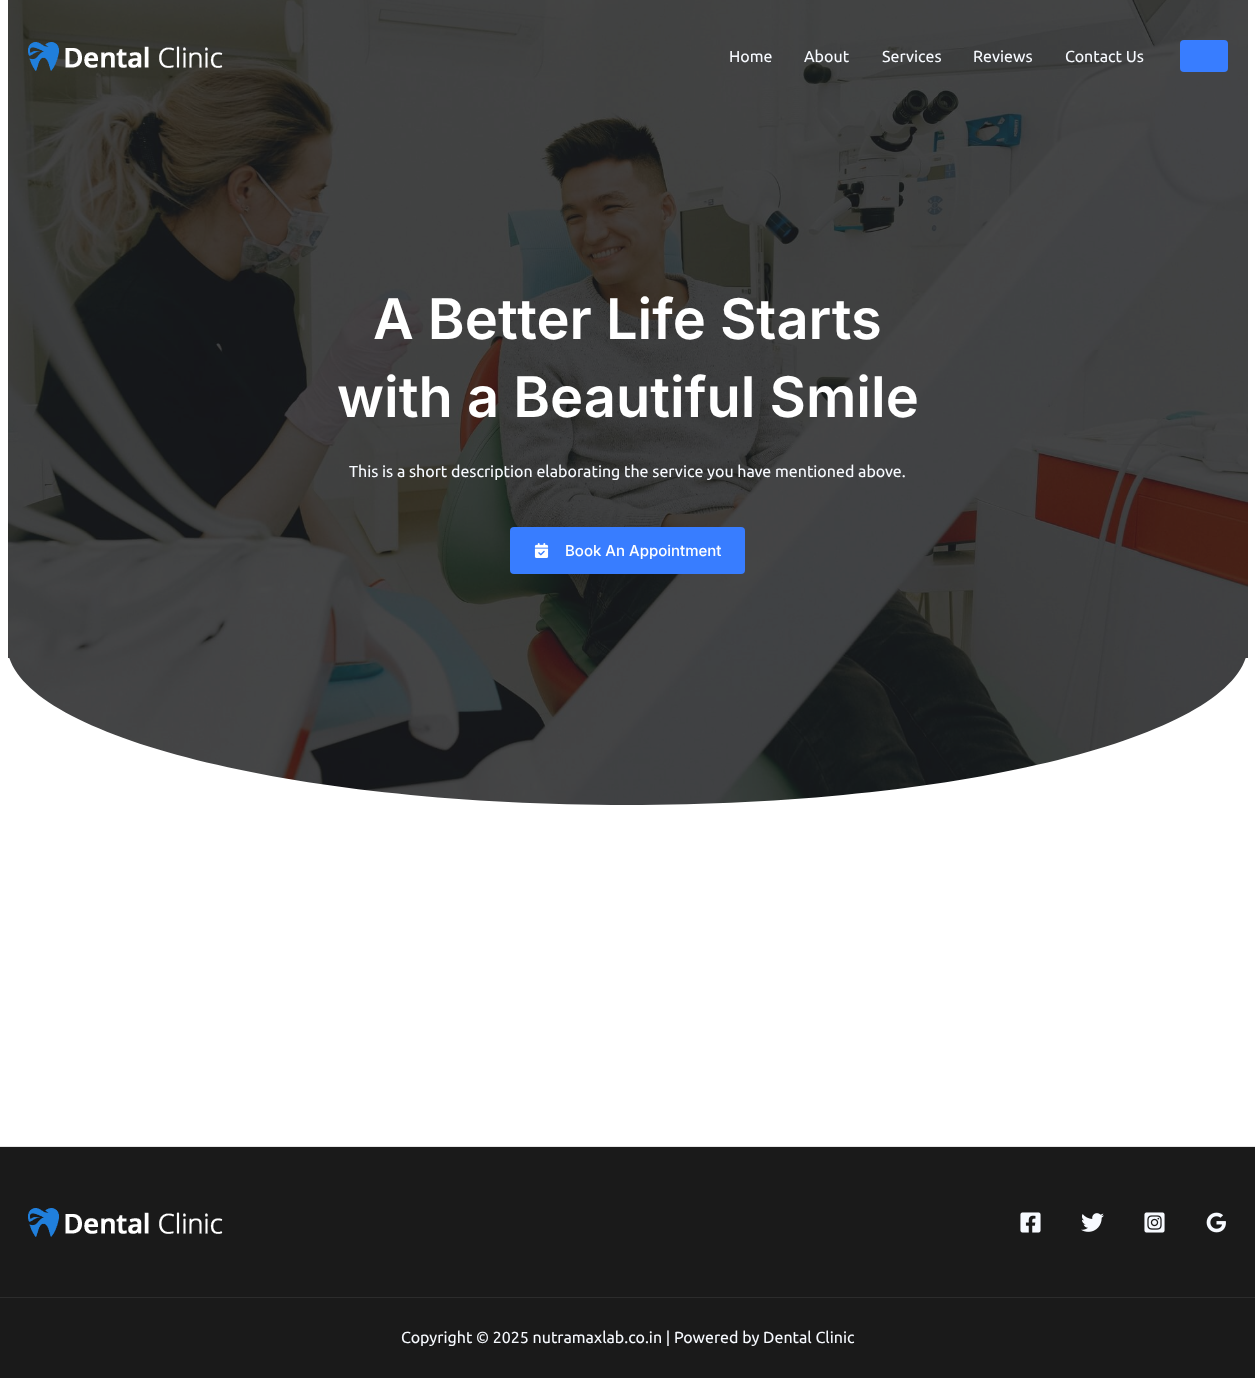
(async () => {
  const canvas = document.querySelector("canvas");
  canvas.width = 1255;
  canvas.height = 1378;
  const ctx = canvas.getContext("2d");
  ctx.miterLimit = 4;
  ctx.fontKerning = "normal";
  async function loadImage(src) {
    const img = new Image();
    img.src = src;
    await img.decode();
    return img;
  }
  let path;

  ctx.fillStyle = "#ffffff";
  ctx.fillRect(0, 0, 1255, 1378);
  ctx.drawImage(await loadImage("img/2.png"), 8, 0, 1240, 805);
  ctx.drawImage(await loadImage("img/1.png"), 28, 42, 195, 29);
  ctx.fillStyle = "#387dff";
  ctx.beginPath();
  ctx.roundRect(1180, 40, 48, 32, 4);
  ctx.fill();
  ctx.beginPath();
  ctx.roundRect(510, 527, 235, 47, 4);
  ctx.fill();
  ctx.drawImage(await loadImage("img/3.png"), 534, 543, 15, 15);
  ctx.save();
  ctx.beginPath();
  ctx.rect(8, 658, 1240, 159);
  ctx.clip();
  ctx.fillStyle = "#ffffff";
  path = new Path2D("M7 644V816H1248V644C1248 733 970 805 627 805C285 805 7 733 7 644Z");
  ctx.fill(path);
  ctx.restore();
  ctx.fillStyle = "#1a1a1a";
  ctx.fillRect(0, 1147, 1255, 231);
  ctx.fillStyle = "#e6e6e6";
  ctx.fillRect(0, 1146, 1255, 1);
  ctx.drawImage(await loadImage("img/4.png"), 28, 1208, 195, 29);
  ctx.drawImage(await loadImage("img/5.png"), 1020, 1212, 21, 21);
  ctx.drawImage(await loadImage("img/6.png"), 1081, 1213, 23, 19);
  ctx.drawImage(await loadImage("img/7.png"), 1144, 1212, 21, 21);
  ctx.drawImage(await loadImage("img/8.png"), 1206, 1212, 20, 21);
  ctx.fillStyle = "#2c2c2c";
  ctx.fillRect(0, 1297, 1255, 1);
  ctx.font = "16px Ubuntu";
  ctx.fillStyle = "#f7faff";
  for (const [text, x, y] of [
    ["Home", 729, 62],
    ["About", 804, 62],
    ["Services", 882, 62],
    ["Reviews", 973, 62],
    ["Contact Us", 1065, 62],
  ]) {
    ctx.fillText(text, x, y);
  }
  ctx.font = "600 56px Inter";
  ctx.fillStyle = "#ffffff";
  ctx.fillText("A Better Life Starts", 373, 339);
  ctx.fillText("with a Beautiful Smile", 337, 417);
  ctx.font = "16px Ubuntu";
  ctx.fillStyle = "#f7faff";
  ctx.fillText("This is a short description elaborating the service you have mentioned above.", 349, 477);
  ctx.font = "500 15px Inter";
  ctx.fillStyle = "#ffffff";
  ctx.fillText("Book An Appointment", 565, 556);
  ctx.font = "16px Ubuntu";
  ctx.fillStyle = "#f7faff";
  ctx.fillText("Copyright © 2025 nutramaxlab.co.in | Powered by Dental Clinic", 401, 1343);
})();
